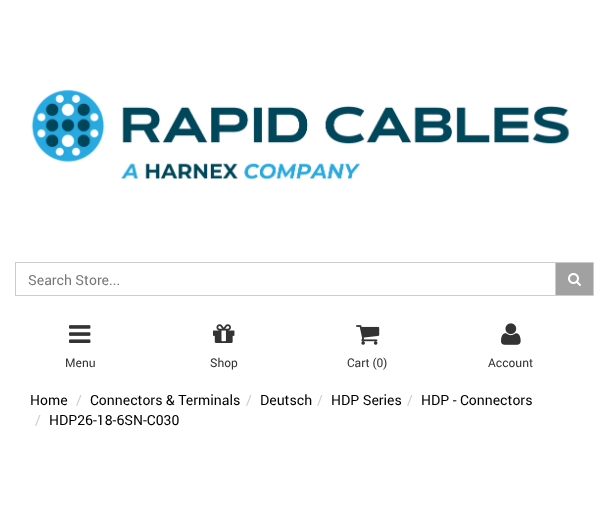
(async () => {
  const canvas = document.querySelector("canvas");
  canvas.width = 609;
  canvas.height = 521;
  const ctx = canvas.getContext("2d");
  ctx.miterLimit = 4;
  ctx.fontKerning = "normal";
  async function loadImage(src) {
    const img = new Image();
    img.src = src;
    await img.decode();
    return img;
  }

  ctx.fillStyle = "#ffffff";
  ctx.fillRect(0, 0, 609, 521);
  ctx.drawImage(await loadImage("img/1.png"), 31, 89, 539, 91);
  ctx.fillStyle = "#a1a1a1";
  ctx.beginPath();
  ctx.rect(555.5, 262.5, 38, 33);
  ctx.fill();
  ctx.strokeStyle = "#cccccc";
  ctx.stroke();
  ctx.strokeRect(15.5, 262.5, 540, 33);
  ctx.drawImage(await loadImage("img/2.png"), 568, 273, 13, 13);
  ctx.drawImage(await loadImage("img/3.png"), 69, 325, 22, 18);
  ctx.drawImage(await loadImage("img/4.png"), 213, 324, 22, 19);
  ctx.drawImage(await loadImage("img/5.png"), 356, 325, 24, 20);
  ctx.drawImage(await loadImage("img/6.png"), 501, 323, 20, 22);
  ctx.font = "14px Roboto";
  ctx.fillStyle = "#777777";
  ctx.fillText("Search Store...", 28, 285);
  ctx.font = "12px Roboto";
  ctx.fillStyle = "#333333";
  for (const [text, x, y] of [
    ["Menu", 65, 367],
    ["Shop", 210, 367],
    ["Cart (0)", 347, 367],
    ["Account", 488, 367],
  ]) {
    ctx.fillText(text, x, y);
  }
  ctx.font = "14px Roboto";
  ctx.fillStyle = "#000000";
  ctx.fillText("Home", 30, 405);
  ctx.fillStyle = "#cccccc";
  ctx.fillText("/", 76, 405);
  ctx.fillStyle = "#000000";
  ctx.fillText("Connectors & Terminals", 90, 405);
  ctx.fillStyle = "#cccccc";
  ctx.fillText("/", 246, 405);
  ctx.fillStyle = "#000000";
  ctx.fillText("Deutsch", 260, 405);
  ctx.fillStyle = "#cccccc";
  ctx.fillText("/", 317, 405);
  ctx.fillStyle = "#000000";
  ctx.fillText("HDP Series", 331, 405);
  ctx.fillStyle = "#cccccc";
  ctx.fillText("/", 407, 405);
  ctx.fillStyle = "#000000";
  ctx.fillText("HDP - Connectors", 421, 405);
  ctx.fillStyle = "#cccccc";
  ctx.fillText("/", 35, 425);
  ctx.fillStyle = "#000000";
  ctx.fillText("HDP26-18-6SN-C030", 49, 425);
})();
